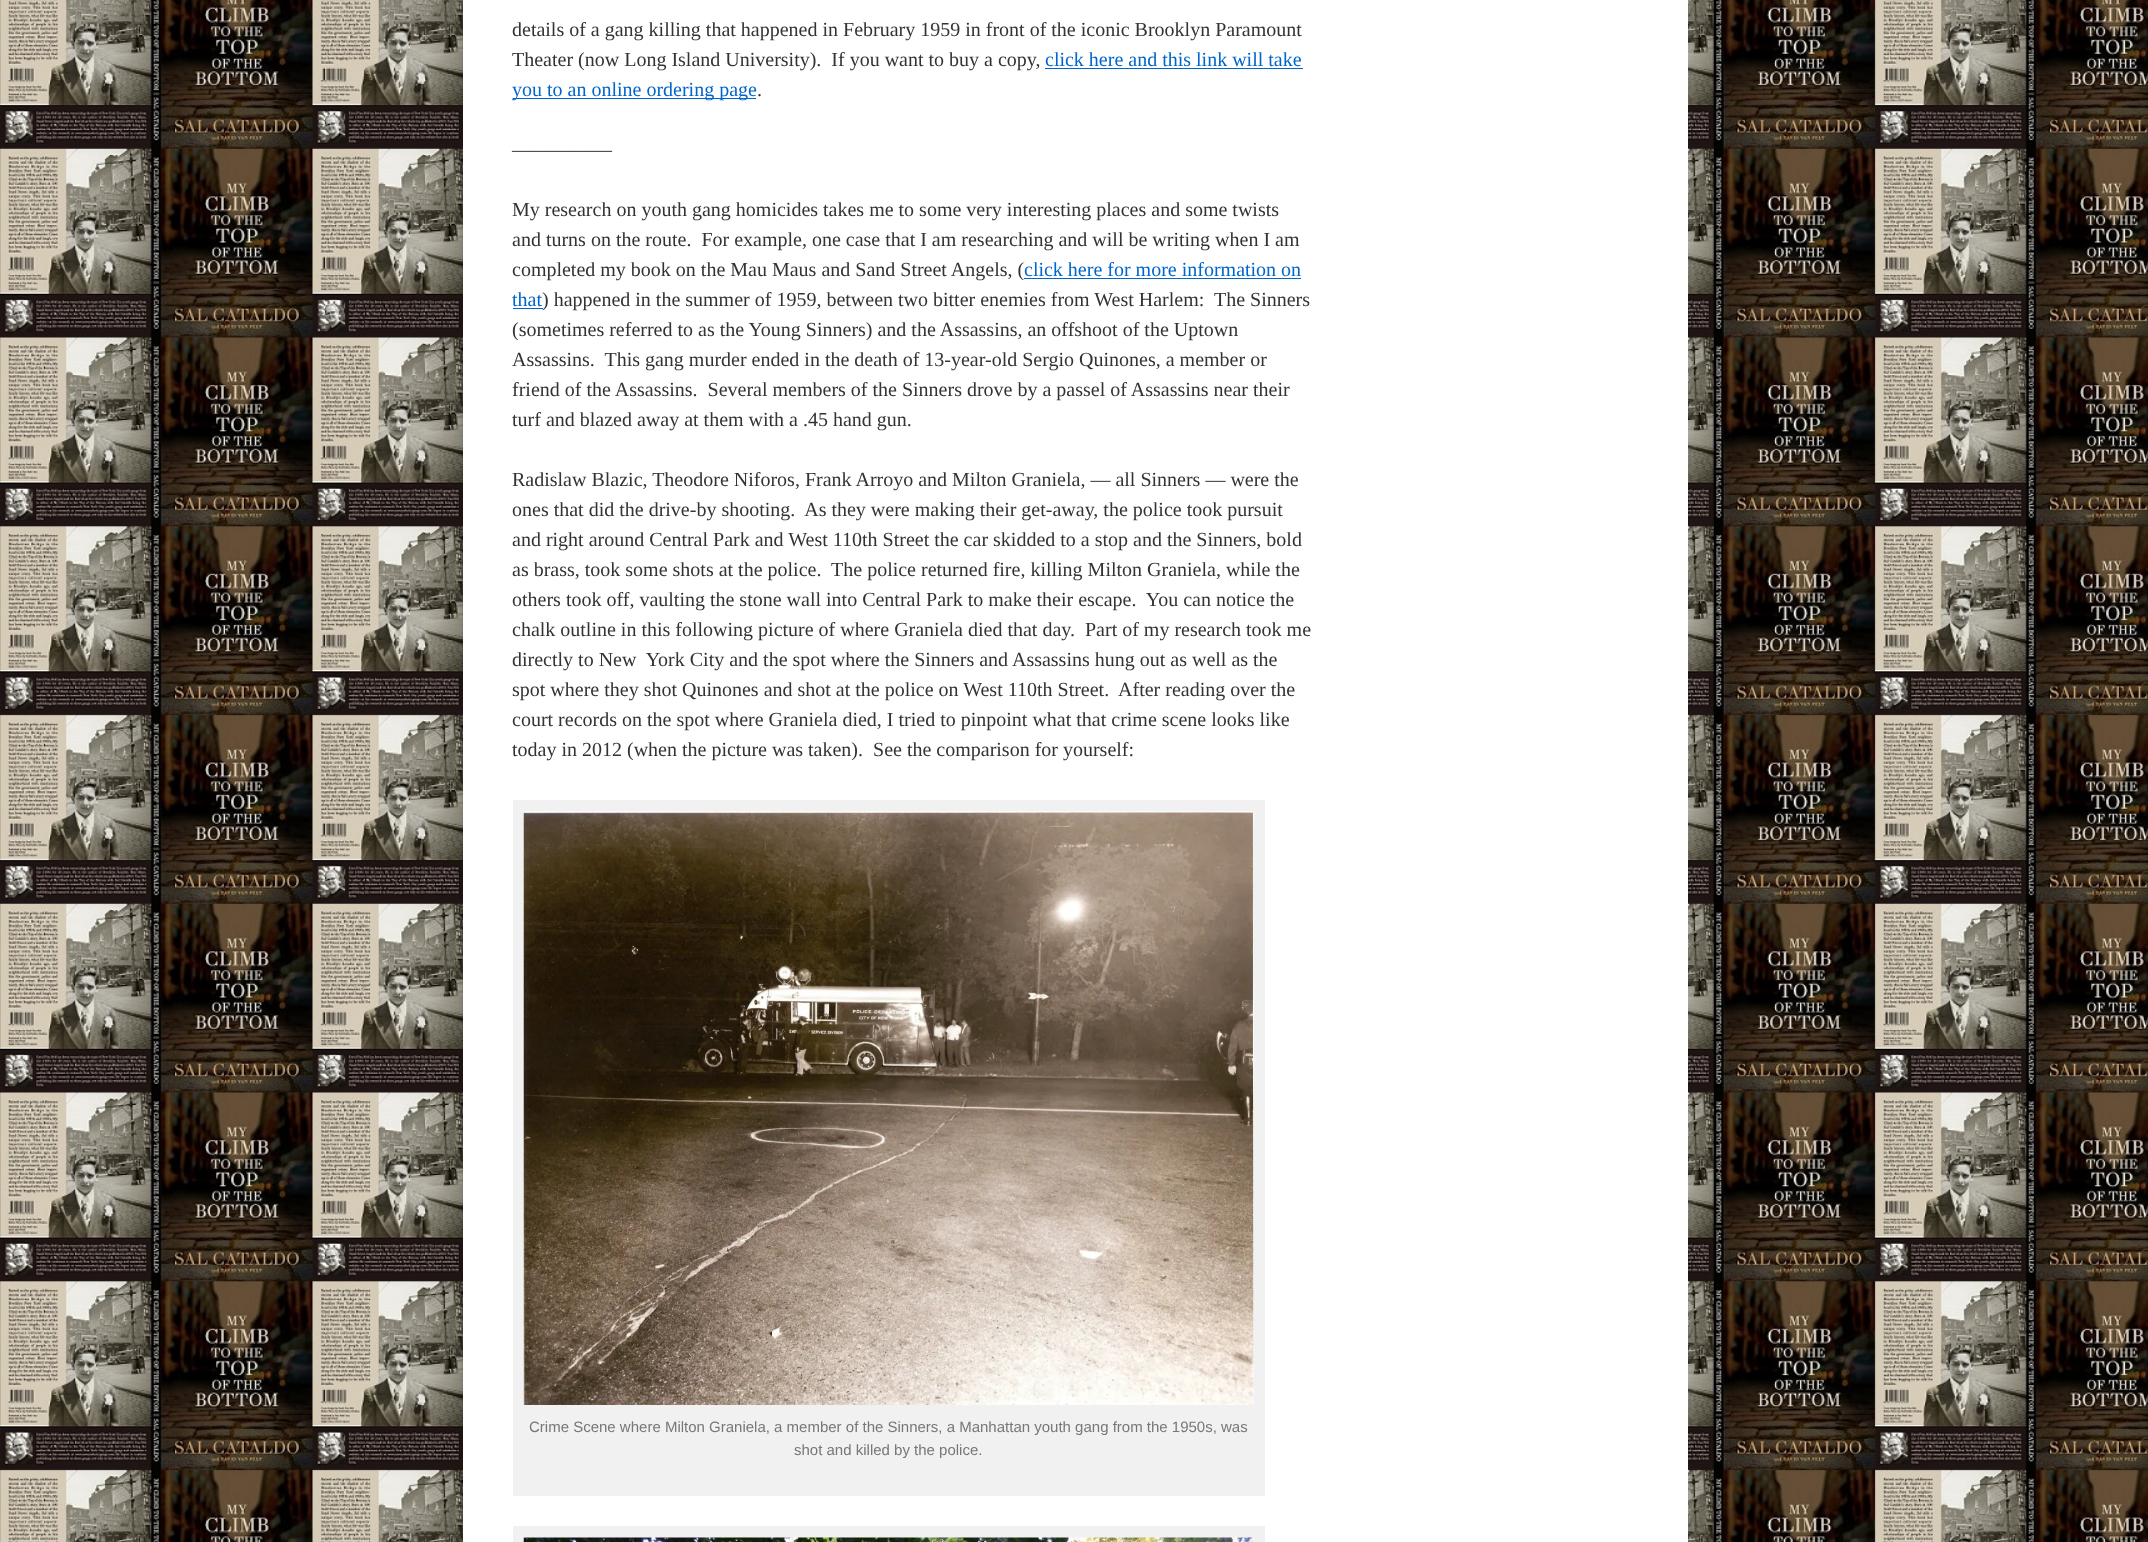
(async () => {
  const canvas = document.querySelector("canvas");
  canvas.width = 2148;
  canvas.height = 1542;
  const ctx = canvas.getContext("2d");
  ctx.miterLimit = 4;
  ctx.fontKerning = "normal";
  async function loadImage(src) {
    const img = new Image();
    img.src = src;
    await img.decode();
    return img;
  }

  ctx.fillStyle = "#ffffff";
  ctx.fillRect(0, 0, 2148, 1542);
  ctx.drawImage(await loadImage("img/1.png"), 0, 0, 2148, 1542);
  for (const [x, y, w, h, color] of [
    [463, 0, 1225, 1542, "#ffffff"],
    [1045, 68, 258, 1, "#0066cc"],
    [513, 98, 243, 1, "#0066cc"],
    [1024, 278, 277, 1, "#0066cc"],
    [513, 308, 30, 1, "#0066cc"],
    [513, 800, 752, 696, "#f1f1f1"],
  ]) {
    ctx.fillStyle = color;
    ctx.fillRect(x, y, w, h);
  }
  ctx.drawImage(await loadImage("img/2.png"), 523, 811, 731, 594);
  ctx.fillRect(513, 1526, 752, 16);
  ctx.drawImage(await loadImage("img/3.png"), 523, 1537, 731, 5);
  ctx.font = "20px Liberation Serif";
  ctx.fillStyle = "#333333";
  ctx.fillText("details of a gang killing that happened in February 1959 in front of the iconic Brooklyn Paramount", 512, 36);
  ctx.fillText("Theater (now Long Island University).  If you want to buy a copy,", 512, 66);
  ctx.fillStyle = "#0066cc";
  ctx.fillText("click here and this link will take", 1045, 66);
  ctx.fillText("you to an online ordering page", 512, 96);
  ctx.fillStyle = "#333333";
  for (const [text, x, y] of [
    [".", 757, 96],
    ["—————", 512, 156],
    ["My research on youth gang homicides takes me to some very interesting places and some twists", 512, 216],
    ["and turns on the route.  For example, one case that I am researching and will be writing when I am", 512, 246],
    ["completed my book on the Mau Maus and Sand Street Angels, (", 512, 276],
  ]) {
    ctx.fillText(text, x, y);
  }
  ctx.fillStyle = "#0066cc";
  ctx.fillText("click here for more information on", 1024, 276);
  ctx.fillText("that", 512, 306);
  ctx.fillStyle = "#333333";
  for (const [text, x, y] of [
    [") happened in the summer of 1959, between two bitter enemies from West Harlem:  The Sinners", 542, 306],
    ["(sometimes referred to as the Young Sinners) and the Assassins, an offshoot of the Uptown", 512, 336],
    ["Assassins.  This gang murder ended in the death of 13-year-old Sergio Quinones, a member or", 512, 366],
    ["friend of the Assassins.  Several members of the Sinners drove by a passel of Assassins near their", 512, 396],
    ["turf and blazed away at them with a .45 hand gun.", 512, 426],
    ["Radislaw Blazic, Theodore Niforos, Frank Arroyo and Milton Graniela, — all Sinners — were the", 512, 486],
    ["ones that did the drive-by shooting.  As they were making their get-away, the police took pursuit", 512, 516],
    ["and right around Central Park and West 110th Street the car skidded to a stop and the Sinners, bold", 512, 546],
    ["as brass, took some shots at the police.  The police returned fire, killing Milton Graniela, while the", 512, 576],
    ["others took off, vaulting the stone wall into Central Park to make their escape.  You can notice the", 512, 606],
    ["chalk outline in this following picture of where Graniela died that day.  Part of my research took me", 512, 636],
    ["directly to New  York City and the spot where the Sinners and Assassins hung out as well as the", 512, 666],
    ["spot where they shot Quinones and shot at the police on West 110th Street.  After reading over the", 512, 696],
    ["court records on the spot where Graniela died, I tried to pinpoint what that crime scene looks like", 512, 726],
    ["today in 2012 (when the picture was taken).  See the comparison for yourself:", 512, 756],
  ]) {
    ctx.fillText(text, x, y);
  }
  ctx.font = "15px Liberation Sans";
  ctx.fillStyle = "#777777";
  ctx.fillText("Crime Scene where Milton Graniela, a member of the Sinners, a Manhattan youth gang from the 1950s, was", 529, 1432);
  ctx.fillText("shot and killed by the police.", 794, 1455);
})();
